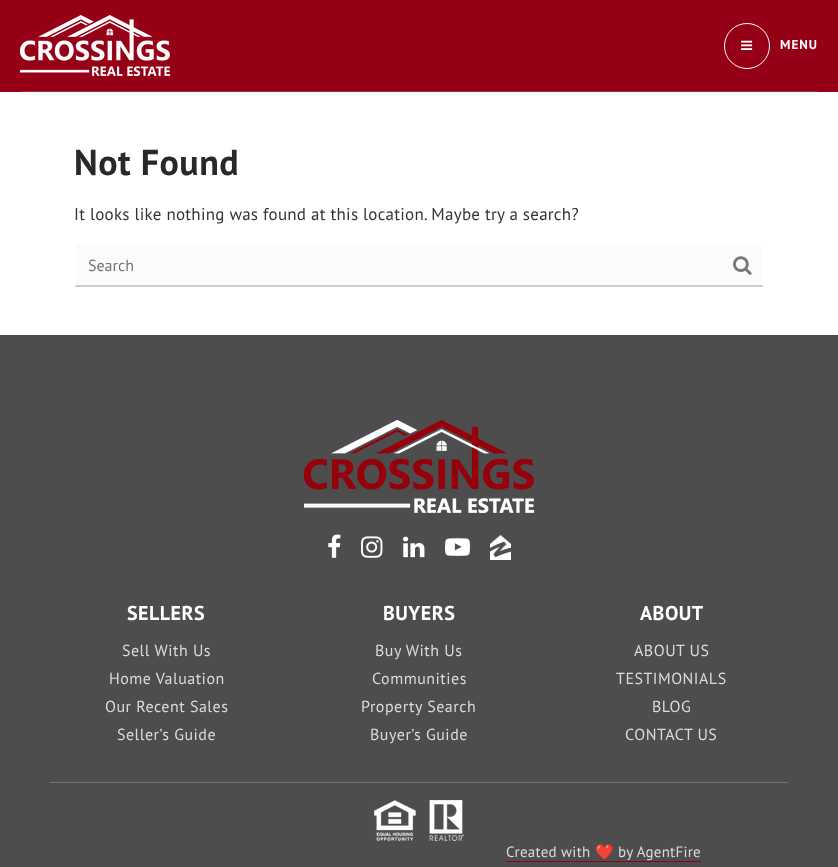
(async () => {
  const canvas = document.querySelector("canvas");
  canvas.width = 838;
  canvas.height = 867;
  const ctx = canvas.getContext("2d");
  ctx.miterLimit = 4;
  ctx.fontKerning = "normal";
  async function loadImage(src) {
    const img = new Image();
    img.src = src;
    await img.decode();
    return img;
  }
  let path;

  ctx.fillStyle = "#ffffff";
  ctx.fillRect(0, 0, 838, 867);
  ctx.fillStyle = "#950017";
  ctx.fillRect(0, 0, 838, 92);
  ctx.fillStyle = "#a5263a";
  ctx.fillRect(20, 91, 798, 1);
  ctx.drawImage(await loadImage("img/1.png"), 20, 15, 150, 61);
  ctx.beginPath();
  ctx.arc(747, 46, 22.5, 0, Math.PI * 2);
  ctx.strokeStyle = "#ffffff";
  ctx.stroke();
  ctx.drawImage(await loadImage("img/2.png"), 741, 40, 12, 10);
  ctx.fillStyle = "#fbfbfb";
  ctx.fillRect(74, 245, 690, 42);
  ctx.fillStyle = "#ffffff";
  path = new Path2D("M764 243V287L762 285V245Z");
  ctx.fill(path);
  ctx.fillStyle = "#cccccc";
  path = new Path2D("M764 287H74L76 285H762Z");
  ctx.fill(path);
  ctx.fillStyle = "#ffffff";
  path = new Path2D("M74 287V243L76 245V285Z");
  ctx.fill(path);
  ctx.drawImage(await loadImage("img/3.png"), 733, 256, 19, 19);
  ctx.fillStyle = "#4d4d4d";
  ctx.fillRect(0, 335, 838, 532);
  ctx.drawImage(await loadImage("img/4.png"), 304, 420, 230, 93);
  ctx.drawImage(await loadImage("img/5.png"), 328, 534, 13, 24);
  ctx.drawImage(await loadImage("img/6.png"), 361, 536, 22, 22);
  ctx.drawImage(await loadImage("img/7.png"), 403, 536, 22, 22);
  ctx.drawImage(await loadImage("img/8.png"), 445, 538, 25, 18);
  ctx.drawImage(await loadImage("img/9.png"), 490, 535, 21, 25);
  ctx.fillStyle = "#717171";
  ctx.fillRect(50, 782, 738, 1);
  ctx.drawImage(await loadImage("img/10.png"), 374, 800, 90, 41);
  ctx.fillStyle = "#950017";
  ctx.fillRect(506, 861, 195, 1);
  ctx.letterSpacing = "1px";
  ctx.font = "bold 13px PT Sans";
  ctx.fillStyle = "#ffffff";
  ctx.fillText("MENU", 780, 49);
  ctx.letterSpacing = "0.5px";
  ctx.font = "bold 36px PT Sans";
  ctx.fillStyle = "#282828";
  ctx.fillText("Not Found", 74, 175);
  ctx.letterSpacing = "0.25px";
  ctx.font = "17px PT Sans";
  ctx.fillStyle = "#333333";
  ctx.fillText("It looks like nothing was found at this location. Maybe try a search?", 74, 220);
  ctx.letterSpacing = "0px";
  ctx.font = "16px PT Sans";
  ctx.fillStyle = "#757575";
  ctx.fillText("Search", 88, 271);
  ctx.letterSpacing = "0.5px";
  ctx.font = "bold 20px PT Sans";
  ctx.fillStyle = "#ffffff";
  ctx.fillText("SELLERS", 127, 620);
  ctx.font = "16px PT Sans";
  ctx.fillStyle = "#dbdbdb";
  for (const [text, x, y] of [
    ["Sell With Us", 122, 656],
    ["Home Valuation", 109, 684],
    ["Our Recent Sales", 105, 712],
    ["Seller’s Guide", 117, 740],
  ]) {
    ctx.fillText(text, x, y);
  }
  ctx.font = "bold 20px PT Sans";
  ctx.fillStyle = "#ffffff";
  ctx.fillText("BUYERS", 383, 620);
  ctx.font = "16px PT Sans";
  ctx.fillStyle = "#dbdbdb";
  for (const [text, x, y] of [
    ["Buy With Us", 375, 656],
    ["Communities", 372, 684],
    ["Property Search", 361, 712],
    ["Buyer’s Guide", 370, 740],
  ]) {
    ctx.fillText(text, x, y);
  }
  ctx.font = "bold 20px PT Sans";
  ctx.fillStyle = "#ffffff";
  ctx.fillText("ABOUT", 640, 620);
  ctx.font = "16px PT Sans";
  ctx.fillStyle = "#dbdbdb";
  for (const [text, x, y] of [
    ["ABOUT US", 634, 656],
    ["TESTIMONIALS", 616, 684],
    ["BLOG", 652, 712],
    ["CONTACT US", 625, 740],
  ]) {
    ctx.fillText(text, x, y);
  }
  ctx.letterSpacing = "0.25px";
  ctx.font = "15px PT Sans";
  ctx.fillText("Created with", 506, 857);
  ctx.font = "15px Noto Color Emoji";
  ctx.fillText("❤️", 595, 857);
  ctx.font = "15px PT Sans";
  ctx.fillText("by AgentFire", 618, 857);
})();
